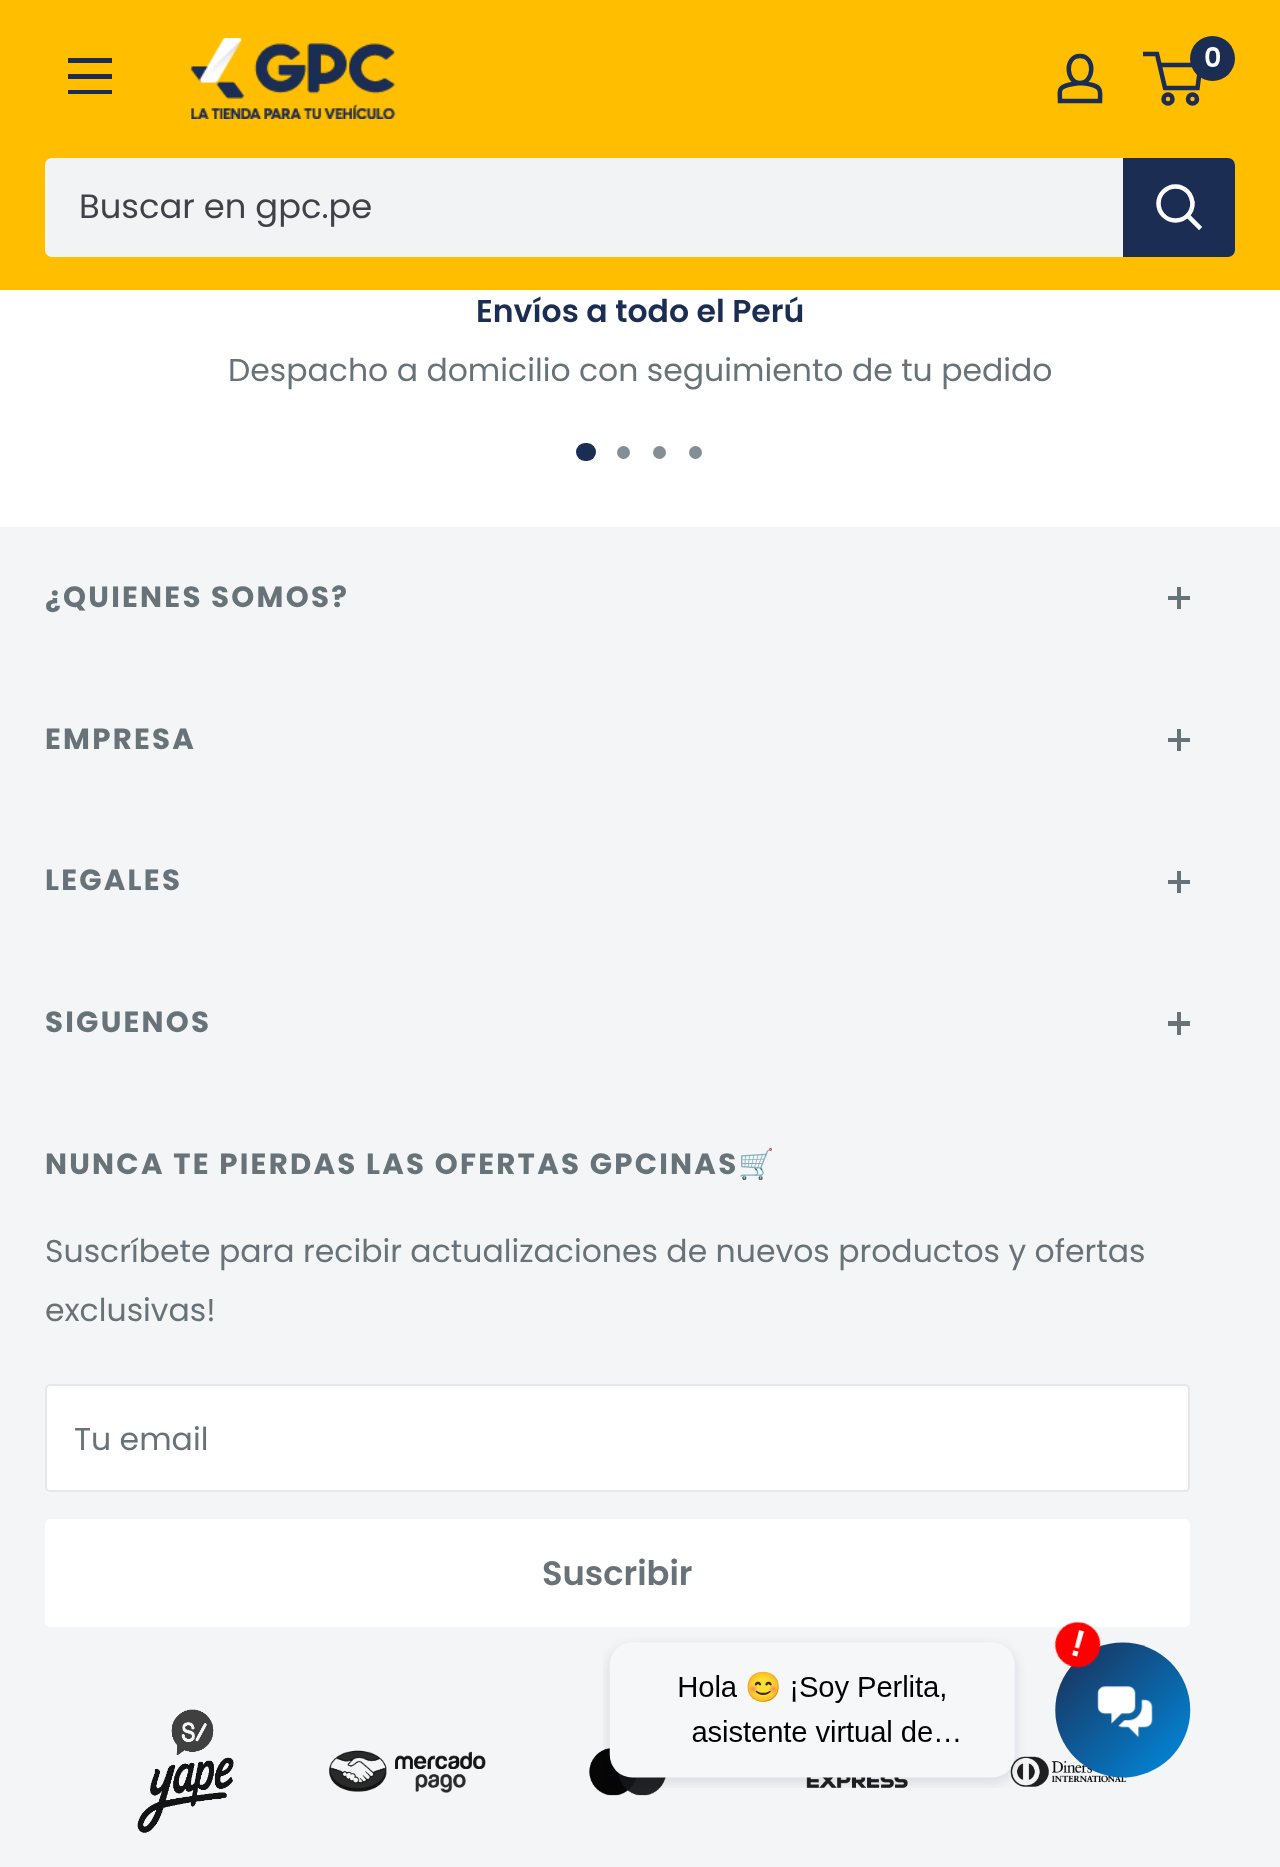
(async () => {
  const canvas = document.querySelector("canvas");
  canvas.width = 1280;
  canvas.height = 1867;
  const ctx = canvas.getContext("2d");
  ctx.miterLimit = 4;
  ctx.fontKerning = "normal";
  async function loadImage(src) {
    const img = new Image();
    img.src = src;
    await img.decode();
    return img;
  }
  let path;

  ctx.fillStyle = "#ffffff";
  ctx.fillRect(0, 0, 1280, 1867);
  ctx.fillStyle = "#ffbf00";
  ctx.fillRect(0, 0, 1280, 290);
  ctx.fillStyle = "#1b2d53";
  path = new Path2D("M68 90H112V94H68ZM68 58H112V63H68ZM68 74H112V79H68Z");
  ctx.fill(path, "evenodd");
  ctx.drawImage(await loadImage("img/1.png"), 190, 38, 206, 81);
  path = new Path2D("M1080 83C1084 83 1088.5 84 1092.5 85C1102 87.5 1100 93 1100 101H1060C1060 92 1057.5 87.5 1068 85C1072 84 1076 83.5 1080 83ZM1080 83C1066 83 1064 56 1080 56C1096 56 1094 83 1080 83Z");
  ctx.strokeStyle = "#1b2d53";
  ctx.lineWidth = 4.5;
  ctx.stroke(path);
  ctx.beginPath();
  ctx.arc(1168, 99, 4.5, 0, Math.PI * 2);
  ctx.stroke();
  ctx.beginPath();
  ctx.arc(1192.5, 99, 4.5, 0, Math.PI * 2);
  ctx.stroke();
  path = new Path2D("M1159.5 65H1200.5L1197.5 88H1165L1157 54H1143");
  ctx.stroke(path);
  ctx.beginPath();
  ctx.arc(1212.5, 58.5, 22.5, 0, Math.PI * 2);
  ctx.fill();
  ctx.fillStyle = "#f1f3f5";
  ctx.beginPath();
  ctx.roundRect(45, 158, 1190, 99, 7);
  ctx.fill();
  ctx.fillStyle = "#1b2d53";
  ctx.beginPath();
  ctx.roundRect(1123, 158, 112, 99, [0, 7, 7, 0]);
  ctx.fill();
  path = new Path2D("M1199 227L1188 216");
  ctx.strokeStyle = "#ffffff";
  ctx.lineCap = "square";
  ctx.stroke(path);
  ctx.beginPath();
  ctx.arc(1175.5, 203.5, 17, 0, Math.PI * 2);
  ctx.stroke();
  ctx.beginPath();
  ctx.roundRect(576, 443, 20, 18, 9);
  ctx.fill();
  ctx.fillStyle = "#858e94";
  ctx.beginPath();
  ctx.arc(623.5, 452.5, 6.5, 0, Math.PI * 2);
  ctx.fill();
  ctx.beginPath();
  ctx.arc(659.5, 452.5, 6.5, 0, Math.PI * 2);
  ctx.fill();
  ctx.beginPath();
  ctx.arc(695.5, 452.5, 6.5, 0, Math.PI * 2);
  ctx.fill();
  for (const [x, y, w, h, color] of [
    [0, 529, 1280, 1338, "#f3f5f6"],
    [0, 527, 1280, 2, "#f4f4f4"],
    [1177, 587, 4, 22, "#677279"],
    [1168, 596, 22, 4, "#677279"],
    [1177, 729, 4, 22, "#677279"],
    [1168, 738, 22, 4, "#677279"],
    [1177, 871, 4, 22, "#677279"],
    [1168, 880, 22, 4, "#677279"],
    [1177, 1012, 4, 23, "#677279"],
    [1168, 1021, 22, 5, "#677279"],
  ]) {
    ctx.fillStyle = color;
    ctx.fillRect(x, y, w, h);
  }
  ctx.fillStyle = "#ffffff";
  ctx.beginPath();
  ctx.roundRect(45, 1384, 1145, 108, 5);
  ctx.fill();
  ctx.fillStyle = "#fcfcfc";
  path = new Path2D("M50 1388H1186C1187 1388 1188 1389 1188 1390C1188 1388 1188 1386 1186 1386H48L47 1387V1390C47 1389 48 1388 50 1388Z");
  ctx.fill(path);
  ctx.beginPath();
  ctx.roundRect(46, 1385, 1143, 106, 4);
  ctx.strokeStyle = "#e7e7e7";
  ctx.lineWidth = 2;
  ctx.stroke();
  ctx.fillStyle = "#ffffff";
  ctx.beginPath();
  ctx.roundRect(45, 1519, 1145, 108, 5);
  ctx.fill();
  ctx.drawImage(await loadImage("img/2.png"), 137, 1709, 97, 124);
  ctx.drawImage(await loadImage("img/3.png"), 328, 1750, 158, 43);
  ctx.drawImage(await loadImage("img/4.png"), 589, 1748, 77, 48);
  ctx.drawImage(await loadImage("img/5.png"), 806, 1777, 102, 11);
  ctx.drawImage(await loadImage("img/6.png"), 1010, 1756, 117, 31);
  ctx.drawImage(await loadImage("img/7.png"), 603, 1621, 588, 167);
  ctx.font = "600 27px Poppins";
  ctx.fillText("0", 1204, 67);
  ctx.font = "33.75px Poppins";
  ctx.fillStyle = "#40424a";
  ctx.fillText("Buscar en gpc.pe", 79, 218);
  ctx.font = "600 31.5px Poppins";
  ctx.fillStyle = "#1b2d53";
  ctx.fillText("Envíos a todo el Perú", 476, 322);
  ctx.font = "31.5px Poppins";
  ctx.fillStyle = "#677279";
  ctx.fillText("Despacho a domicilio con seguimiento de tu pedido", 228, 381);
  ctx.letterSpacing = "2.25px";
  ctx.font = "bold 29.25px Poppins";
  for (const [text, x, y] of [
    ["¿QUIENES SOMOS?", 45, 607],
    ["EMPRESA", 45, 749],
    ["LEGALES", 45, 890],
    ["SIGUENOS", 45, 1032],
    ["NUNCA TE PIERDAS LAS OFERTAS GPCINAS", 45, 1174],
  ]) {
    ctx.fillText(text, x, y);
  }
  ctx.font = "bold 29.25px Noto Color Emoji";
  ctx.fillText("🛒", 738, 1174);
  ctx.letterSpacing = "0px";
  ctx.font = "31.5px Poppins";
  for (const [text, x, y] of [
    ["Suscríbete para recibir actualizaciones de nuevos productos y ofertas", 45, 1262],
    ["exclusivas!", 45, 1321],
    ["Tu email", 74, 1450],
  ]) {
    ctx.fillText(text, x, y);
  }
  ctx.font = "600 33.75px Poppins";
  ctx.fillText("Suscribir", 542, 1585);
})();
